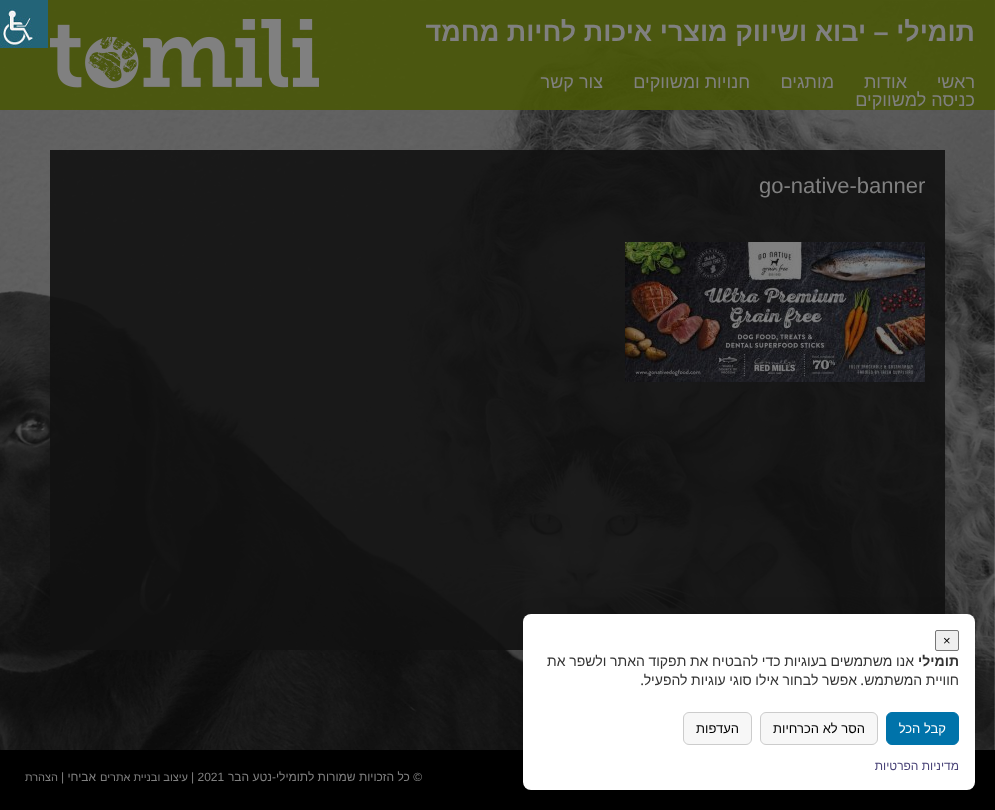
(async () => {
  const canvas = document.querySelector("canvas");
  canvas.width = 995;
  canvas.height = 810;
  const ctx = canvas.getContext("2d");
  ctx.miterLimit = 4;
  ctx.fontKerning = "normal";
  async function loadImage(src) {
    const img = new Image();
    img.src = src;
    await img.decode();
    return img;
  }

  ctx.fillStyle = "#ffffff";
  ctx.fillRect(0, 0, 995, 810);
  ctx.drawImage(await loadImage("img/1.png"), 0, 0, 995, 750);
  ctx.fillStyle = "rgba(73, 86, 8, 0.9)";
  ctx.fillRect(0, 0, 995, 110);
  ctx.drawImage(await loadImage("img/2.png"), 50, 19, 269, 69);
  ctx.drawImage(await loadImage("img/3.png"), 0, 0, 48, 48);
  ctx.fillStyle = "rgba(18, 18, 18, 0.9)";
  ctx.fillRect(50, 150, 895, 500);
  ctx.drawImage(await loadImage("img/4.png"), 625, 242, 300, 140);
  ctx.fillStyle = "#000000";
  ctx.fillRect(0, 750, 995, 60);
  ctx.fillStyle = "rgba(0, 0, 0, 0.15)";
  ctx.filter = "blur(12px)";
  ctx.beginPath();
  ctx.roundRect(523, 622, 452, 176, 8);
  ctx.fill();
  ctx.filter = "none";
  ctx.fillStyle = "#ffffff";
  ctx.beginPath();
  ctx.roundRect(523, 614, 452, 176, 8);
  ctx.fill();
  ctx.fillStyle = "#efefef";
  ctx.beginPath();
  ctx.roundRect(935.5, 630.5, 23, 20, 1.5);
  ctx.fill();
  ctx.strokeStyle = "#767676";
  ctx.stroke();
  ctx.fillStyle = "#0073aa";
  ctx.beginPath();
  ctx.roundRect(886.5, 712.5, 72, 32, 5.5);
  ctx.fill();
  ctx.strokeStyle = "#0073aa";
  ctx.stroke();
  ctx.fillStyle = "#f7f7f7";
  ctx.beginPath();
  ctx.roundRect(760.5, 712.5, 117, 32, 5.5);
  ctx.fill();
  ctx.strokeStyle = "#cccccc";
  ctx.stroke();
  ctx.beginPath();
  ctx.roundRect(683.5, 712.5, 68, 32, 5.5);
  ctx.fill();
  ctx.stroke();
  ctx.direction = "rtl";
  ctx.font = "bold 27px Liberation Sans";
  ctx.fillStyle = "#808080";
  ctx.fillText("תומילי – יבוא ושיווק מוצרי איכות לחיות מחמד", 975, 41);
  ctx.font = "18px Liberation Sans";
  for (const [text, x, y] of [
    ["ראשי", 975, 88],
    ["אודות", 907, 88],
    ["מותגים", 834, 88],
    ["חנויות ומשווקים", 750, 88],
    ["צור קשר", 603, 88],
    ["כניסה למשווקים", 975, 106],
  ]) {
    ctx.fillText(text, x, y);
  }
  ctx.direction = "ltr";
  ctx.font = "22px Liberation Sans";
  ctx.fillText("go-native-banner", 759, 193);
  ctx.font = "13px Liberation Sans";
  ctx.fillStyle = "#000000";
  ctx.fillText("×", 943, 645);
  ctx.direction = "rtl";
  ctx.font = "bold 14px Liberation Sans";
  ctx.fillStyle = "#333333";
  ctx.fillText("תומילי", 959, 666);
  ctx.wordSpacing = "-0.25px";
  ctx.font = "14px Liberation Sans";
  ctx.fillText("אנו משתמשים בעוגיות כדי להבטיח את תפקוד האתר ולשפר את", 914, 666);
  ctx.fillText("חוויית המשתמש", 959, 685);
  ctx.wordSpacing = "0px";
  ctx.font = "14px Noto Sans";
  ctx.fillText(".", 864, 685);
  ctx.wordSpacing = "-0.25px";
  ctx.font = "14px Liberation Sans";
  ctx.fillText("אפשר לבחור אילו סוגי עוגיות להפעיל", 857, 685);
  ctx.wordSpacing = "0px";
  ctx.font = "14px Noto Sans";
  ctx.fillText(".", 644, 685);
  ctx.font = "13px Liberation Sans";
  ctx.fillStyle = "#ffffff";
  ctx.fillText("קבל הכל", 946, 733);
  ctx.fillStyle = "#000000";
  ctx.fillText("הסר לא הכרחיות", 865, 733);
  ctx.fillText("העדפות", 739, 733);
  ctx.font = "12px Liberation Sans";
  ctx.fillStyle = "#4a4478";
  ctx.fillText("מדיניות הפרטיות", 959, 770);
  ctx.fillStyle = "#808080";
  ctx.fillText("© כל הזכויות שמורות לתומילי-נטע הבר", 422, 781);
  ctx.direction = "ltr";
  ctx.fillText("| 2021", 191, 781);
  ctx.direction = "rtl";
  ctx.font = "11px Liberation Sans";
  ctx.fillText("עיצוב ובניית אתרים", 188, 781);
  ctx.font = "12px Liberation Sans";
  ctx.fillText("אביחי |", 96, 781);
  ctx.font = "11px Liberation Sans";
  ctx.fillText("הצהרת", 58, 781);
})();
